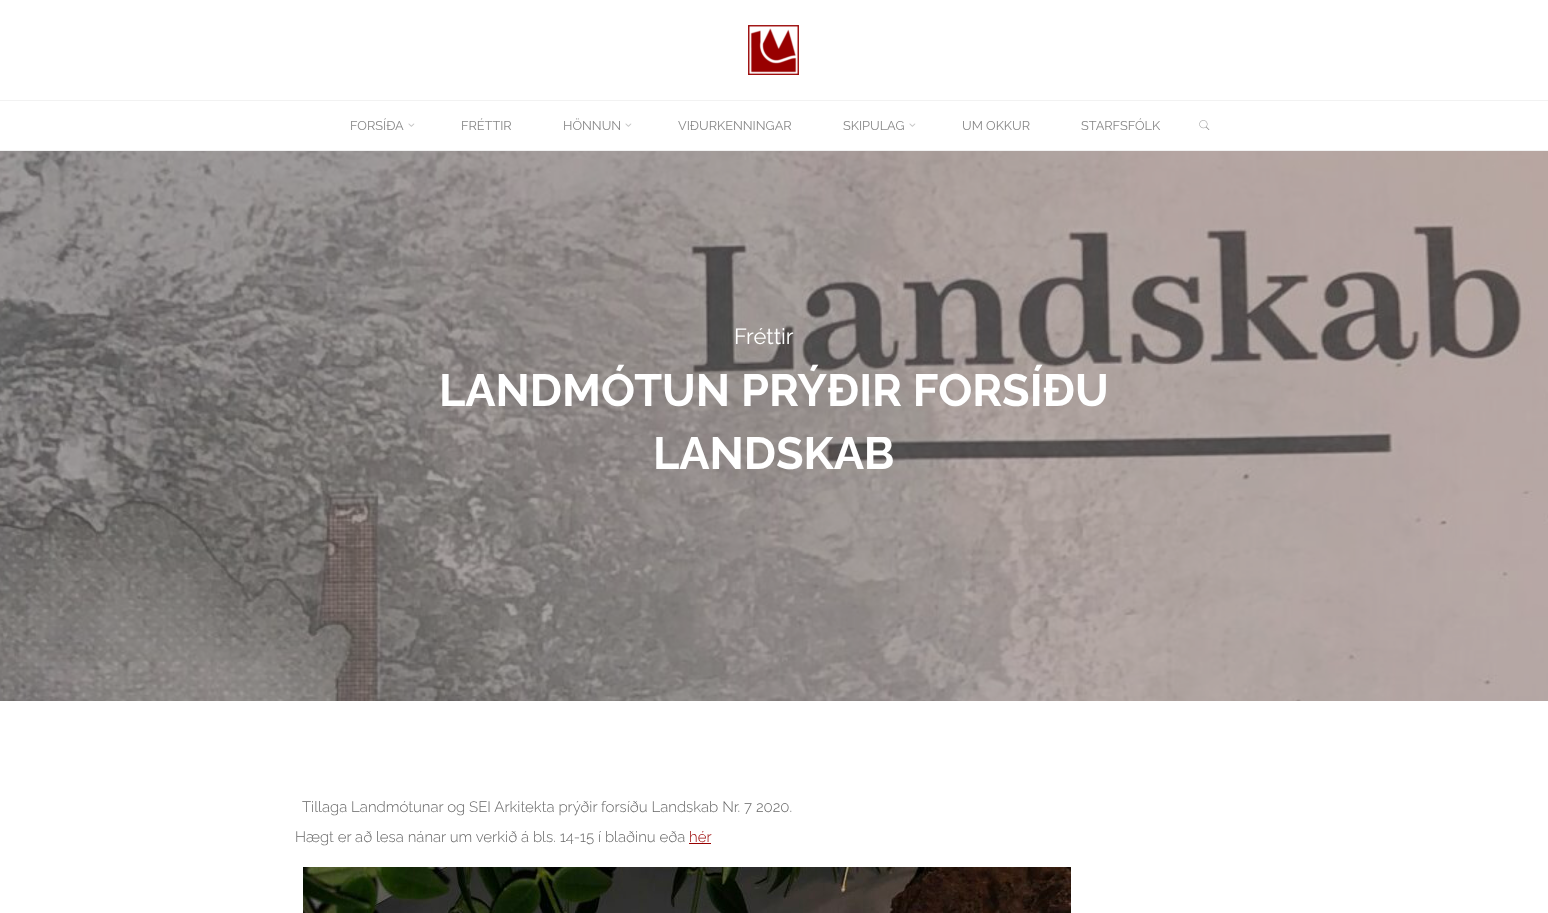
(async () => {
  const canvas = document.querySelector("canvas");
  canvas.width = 1548;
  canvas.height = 913;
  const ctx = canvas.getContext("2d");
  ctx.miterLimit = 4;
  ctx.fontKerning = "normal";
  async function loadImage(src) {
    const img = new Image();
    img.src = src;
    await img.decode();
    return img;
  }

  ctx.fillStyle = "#ffffff";
  ctx.fillRect(0, 0, 1548, 913);
  ctx.drawImage(await loadImage("img/1.png"), 748, 25, 51, 50);
  ctx.fillStyle = "#f2f2f2";
  ctx.fillRect(0, 100, 1548, 1);
  ctx.fillRect(0, 150, 1548, 1);
  ctx.drawImage(await loadImage("img/2.png"), 408, 123, 7, 4);
  ctx.drawImage(await loadImage("img/2.png"), 625, 123, 7, 4);
  ctx.drawImage(await loadImage("img/2.png"), 909, 123, 7, 4);
  ctx.drawImage(await loadImage("img/3.png"), 1199, 120, 11, 10);
  ctx.drawImage(await loadImage("img/4.png"), 0, 151, 1548, 550);
  ctx.fillStyle = "#980000";
  ctx.fillRect(689, 843, 22, 1);
  ctx.drawImage(await loadImage("img/5.png"), 303, 867, 768, 46);
  ctx.font = "12.75px Raleway";
  ctx.fillStyle = "#888888";
  for (const [text, x, y] of [
    ["FORSÍÐA", 350, 130],
    ["FRÉTTIR", 461, 130],
    ["HÖNNUN", 563, 130],
    ["VIÐURKENNINGAR", 678, 130],
    ["SKIPULAG", 843, 130],
    ["UM OKKUR", 962, 130],
    ["STARFSFÓLK", 1081, 130],
  ]) {
    ctx.fillText(text, x, y);
  }
  ctx.font = "22px Raleway";
  ctx.fillStyle = "#ffffff";
  ctx.fillText("Fréttir", 734, 344);
  ctx.font = "bold 45px Raleway";
  ctx.fillText("LANDMÓTUN PRÝÐIR FORSÍÐU", 439, 406);
  ctx.fillText("LANDSKAB", 653, 469);
  ctx.font = "300 15px Raleway";
  ctx.fillStyle = "#666666";
  ctx.fillText("Tillaga Landmótunar og SEI Arkitekta prýðir forsíðu Landskab Nr. 7 2020.", 302, 812);
  ctx.fillText("Hægt er að lesa nánar um verkið á bls. 14-15 í blaðinu eða", 295, 842);
  ctx.fillStyle = "#980000";
  ctx.fillText("hér", 689, 842);
})();
